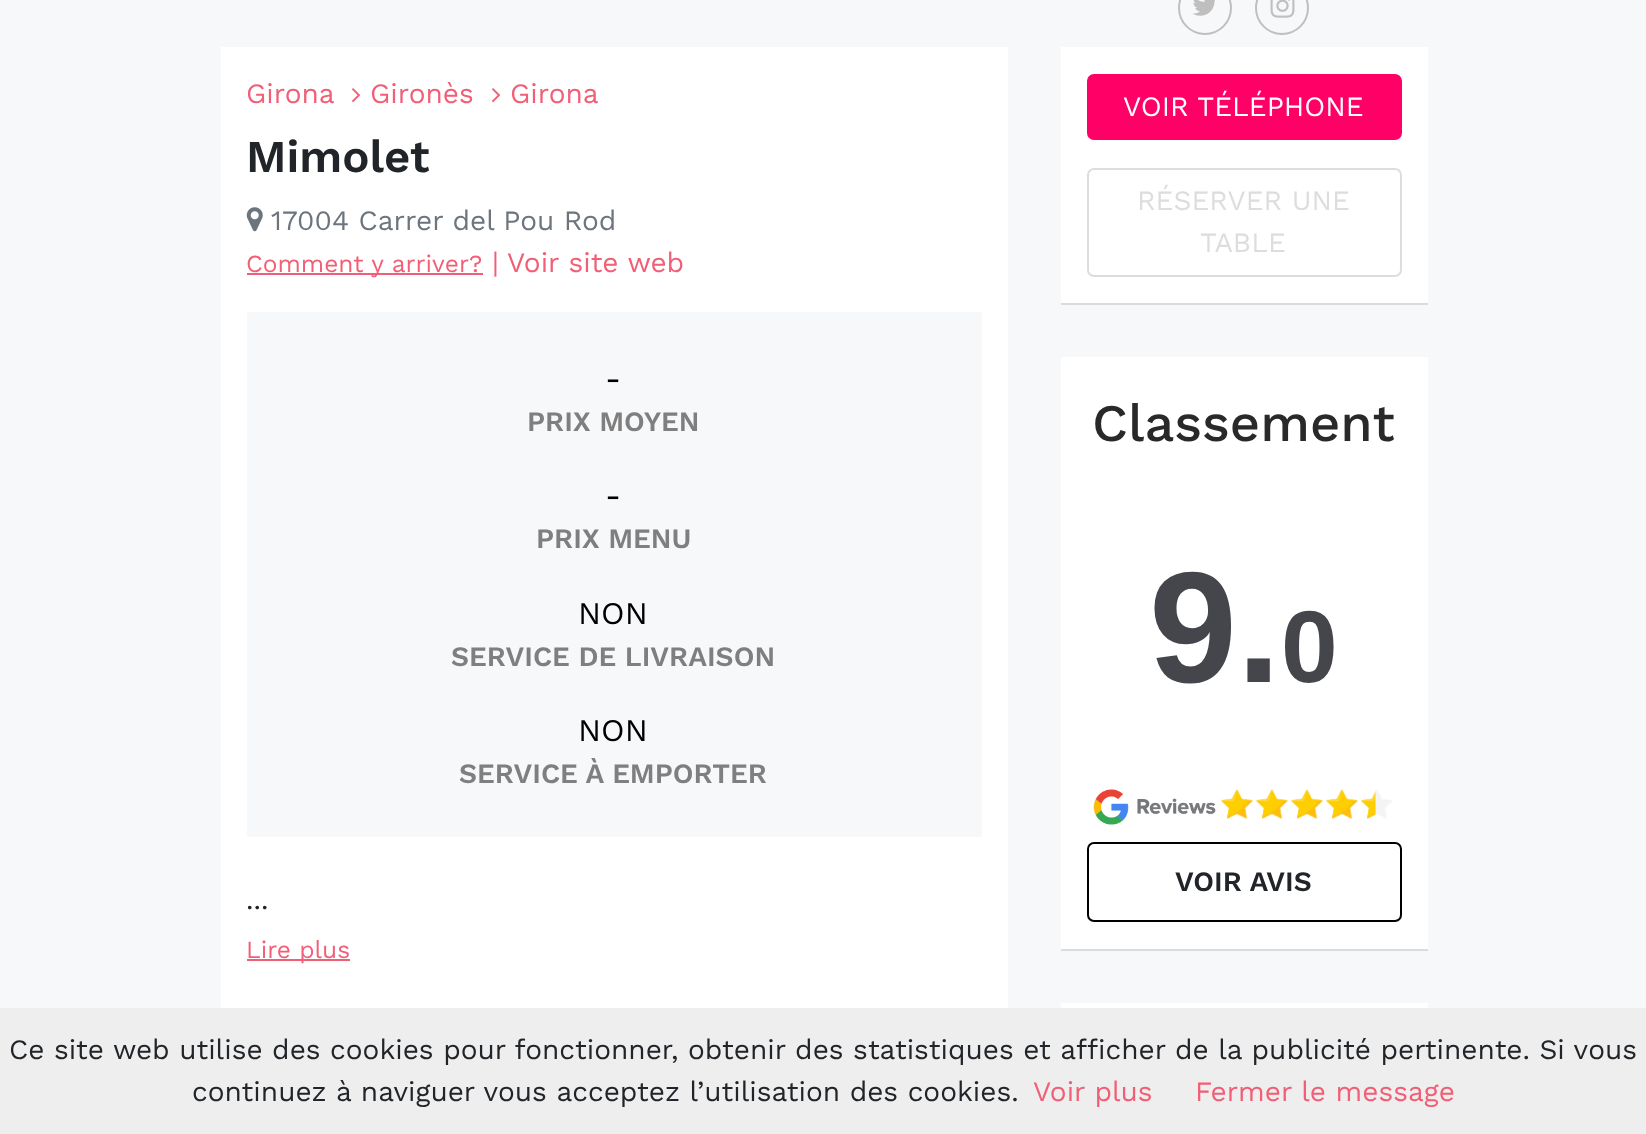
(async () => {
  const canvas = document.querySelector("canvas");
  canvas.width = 1646;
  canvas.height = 1134;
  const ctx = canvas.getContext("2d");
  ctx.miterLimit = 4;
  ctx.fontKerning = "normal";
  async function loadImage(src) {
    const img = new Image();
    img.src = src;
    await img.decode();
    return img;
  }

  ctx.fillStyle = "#f7f8f9";
  ctx.fillRect(0, 0, 1646, 1134);
  ctx.beginPath();
  ctx.arc(1205, 8, 26, 0, Math.PI * 2);
  ctx.strokeStyle = "#bfbfbf";
  ctx.lineWidth = 2;
  ctx.stroke();
  ctx.drawImage(await loadImage("img/1.png"), 1192, 0, 23, 16);
  ctx.beginPath();
  ctx.arc(1282, 8, 26, 0, Math.PI * 2);
  ctx.stroke();
  ctx.drawImage(await loadImage("img/2.png"), 1270, 0, 25, 18);
  ctx.fillStyle = "#ffffff";
  ctx.fillRect(221, 47, 787, 961);
  ctx.drawImage(await loadImage("img/3.png"), 352, 88, 9, 15);
  ctx.drawImage(await loadImage("img/3.png"), 492, 88, 9, 15);
  ctx.drawImage(await loadImage("img/4.png"), 246, 207, 17, 25);
  for (const [x, y, w, h, color] of [
    [247, 273, 236, 2, "#f15e75"],
    [247, 312, 735, 525, "#f7f8fa"],
    [247, 959, 103, 2, "#f15e75"],
    [1061, 47, 367, 256, "#ffffff"],
    [1061, 303, 367, 2, "#d8dce1"],
  ]) {
    ctx.fillStyle = color;
    ctx.fillRect(x, y, w, h);
  }
  ctx.fillStyle = "#ff0066";
  ctx.beginPath();
  ctx.roundRect(1088, 75, 313, 64, 6);
  ctx.fill();
  ctx.strokeStyle = "#ff0066";
  ctx.stroke();
  ctx.beginPath();
  ctx.roundRect(1088, 169, 313, 107, 6);
  ctx.strokeStyle = "#dddddd";
  ctx.stroke();
  ctx.fillStyle = "#ffffff";
  ctx.fillRect(1061, 357, 367, 592);
  ctx.fillStyle = "#d8dce1";
  ctx.fillRect(1061, 949, 367, 2);
  ctx.drawImage(await loadImage("img/5.png"), 1093, 789, 123, 36);
  ctx.drawImage(await loadImage("img/9.png"), 1222, 790, 30, 29);
  ctx.drawImage(await loadImage("img/6.png"), 1220, 789, 33, 30);
  ctx.drawImage(await loadImage("img/10.png"), 1257, 790, 30, 29);
  ctx.drawImage(await loadImage("img/7.png"), 1255, 789, 33, 30);
  ctx.drawImage(await loadImage("img/10.png"), 1292, 790, 30, 29);
  ctx.drawImage(await loadImage("img/7.png"), 1290, 789, 33, 30);
  ctx.drawImage(await loadImage("img/10.png"), 1327, 790, 30, 29);
  ctx.drawImage(await loadImage("img/7.png"), 1325, 789, 33, 30);
  ctx.drawImage(await loadImage("img/10.png"), 1362, 790, 30, 29);
  ctx.drawImage(await loadImage("img/8.png"), 1360, 790, 16, 29);
  ctx.beginPath();
  ctx.roundRect(1088, 843, 313, 78, 6);
  ctx.strokeStyle = "#000000";
  ctx.stroke();
  ctx.fillStyle = "#ffffff";
  ctx.fillRect(1061, 1003, 367, 5);
  ctx.fillStyle = "#eeeeee";
  ctx.fillRect(0, 1008, 1646, 126);
  ctx.font = "28px Work Sans";
  ctx.fillStyle = "#f15e75";
  for (const [text, x, y] of [
    ["Girona", 246, 103],
    ["Gironès", 370, 103],
    ["Girona", 510, 103],
  ]) {
    ctx.fillText(text, x, y);
  }
  ctx.font = "600 45.5px Work Sans";
  ctx.fillStyle = "#212529";
  ctx.fillText("Mimolet", 246, 172);
  ctx.font = "28px Work Sans";
  ctx.fillStyle = "#6c757d";
  ctx.fillText("17004 Carrer del Pou Rod", 271, 230);
  ctx.font = "24.5px Work Sans";
  ctx.fillStyle = "#f15e75";
  ctx.fillText("Comment y arriver?", 246, 272);
  ctx.font = "28px Work Sans";
  ctx.fillText("|", 492, 272);
  ctx.fillText("Voir site web", 507, 272);
  ctx.font = "31.5px Work Sans";
  ctx.fillStyle = "#000000";
  ctx.fillText("-", 605, 389);
  ctx.font = "600 28px Work Sans";
  ctx.fillStyle = "#7f7f7f";
  ctx.fillText("PRIX MOYEN", 527, 431);
  ctx.font = "31.5px Work Sans";
  ctx.fillStyle = "#000000";
  ctx.fillText("-", 605, 506);
  ctx.font = "600 28px Work Sans";
  ctx.fillStyle = "#7f7f7f";
  ctx.fillText("PRIX MENU", 536, 548);
  ctx.font = "31.5px Work Sans";
  ctx.fillStyle = "#000000";
  ctx.fillText("NON", 578, 624);
  ctx.font = "600 28px Work Sans";
  ctx.fillStyle = "#7f7f7f";
  ctx.fillText("SERVICE DE LIVRAISON", 451, 666);
  ctx.font = "31.5px Work Sans";
  ctx.fillStyle = "#000000";
  ctx.fillText("NON", 578, 741);
  ctx.font = "600 28px Work Sans";
  ctx.fillStyle = "#7f7f7f";
  ctx.fillText("SERVICE À EMPORTER", 459, 783);
  ctx.font = "28px Work Sans";
  ctx.fillStyle = "#212529";
  ctx.fillText("...", 246, 909);
  ctx.font = "24.5px Work Sans";
  ctx.fillStyle = "#f15e75";
  ctx.fillText("Lire plus", 246, 958);
  ctx.font = "28px Work Sans";
  ctx.fillStyle = "#ffffff";
  ctx.fillText("VOIR TÉLÉPHONE", 1123, 116);
  ctx.fillStyle = "#dddddd";
  ctx.fillText("RÉSERVER UNE", 1137, 210);
  ctx.fillText("TABLE", 1200, 252);
  ctx.font = "500 52.5px Work Sans";
  ctx.fillStyle = "#2a2929";
  ctx.fillText("Classement", 1092, 441);
  ctx.font = "bold 158px Liberation Sans";
  ctx.fillStyle = "#45454c";
  ctx.fillText("9.", 1149, 682);
  ctx.font = "bold 102px Liberation Sans";
  ctx.fillText("0", 1281, 682);
  ctx.font = "600 28px Work Sans";
  ctx.fillStyle = "#212529";
  ctx.fillText("VOIR AVIS", 1175, 891);
  ctx.font = "28px Work Sans";
  ctx.fillText("Ce site web utilise des cookies pour fonctionner, obtenir des statistiques et afficher de la publicité pertinente. Si vous", 9, 1059);
  ctx.fillText("continuez à naviguer vous acceptez l’utilisation des cookies.", 192, 1101);
  ctx.fillStyle = "#f15e75";
  ctx.fillText("Voir plus", 1033, 1101);
  ctx.fillText("Fermer le message", 1195, 1101);
})();
